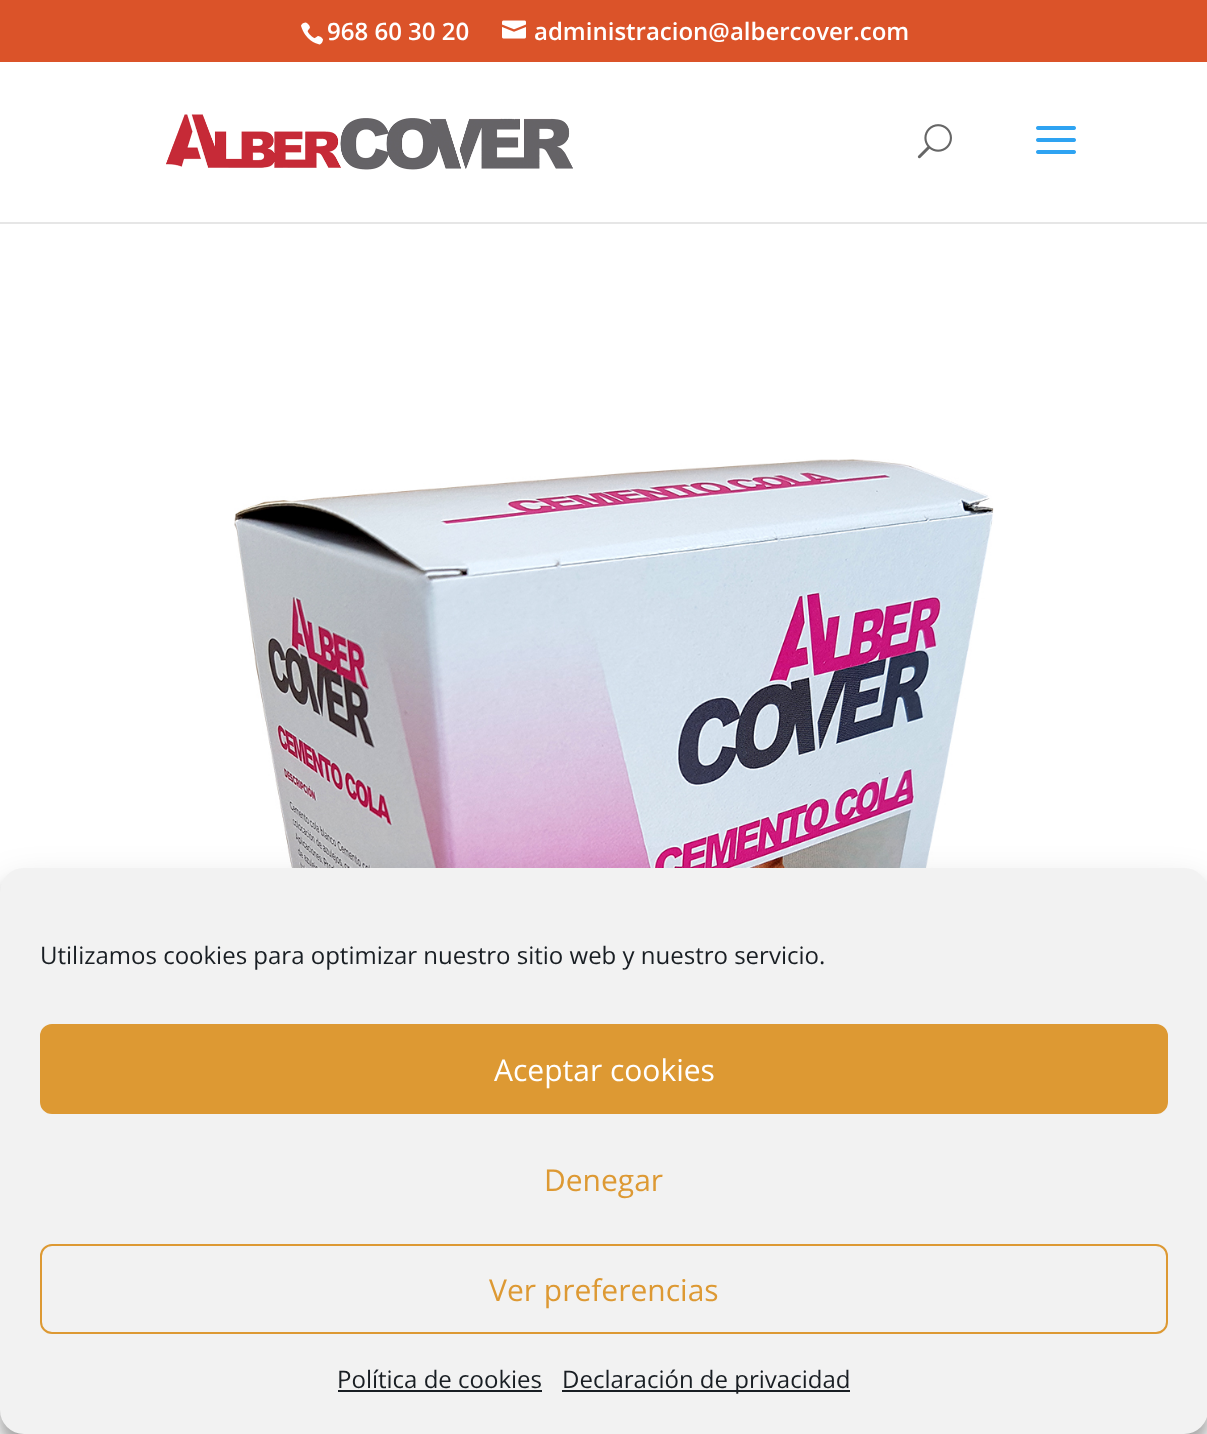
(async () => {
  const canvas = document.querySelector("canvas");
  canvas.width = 1207;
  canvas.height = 1434;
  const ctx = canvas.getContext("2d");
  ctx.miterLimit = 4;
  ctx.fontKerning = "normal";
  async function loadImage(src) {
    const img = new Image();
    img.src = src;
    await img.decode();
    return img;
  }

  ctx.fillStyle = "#ffffff";
  ctx.fillRect(0, 0, 1207, 1434);
  ctx.fillStyle = "#db5329";
  ctx.fillRect(0, 0, 1207, 62);
  ctx.drawImage(await loadImage("img/1.png"), 301, 22, 22, 23);
  ctx.drawImage(await loadImage("img/2.png"), 502, 20, 24, 19);
  ctx.fillStyle = "#e6e6e6";
  ctx.fillRect(0, 222, 1207, 2);
  ctx.drawImage(await loadImage("img/3.png"), 166, 114, 407, 56);
  ctx.drawImage(await loadImage("img/4.png"), 917, 124, 35, 35);
  ctx.drawImage(await loadImage("img/5.png"), 1036, 126, 40, 28);
  ctx.drawImage(await loadImage("img/6.png"), 234, 459, 760, 409);
  ctx.fillStyle = "rgba(0, 0, 0, 0.23)";
  ctx.filter = "blur(6px)";
  ctx.beginPath();
  ctx.roundRect(0, 880, 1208, 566, 24);
  ctx.fill();
  ctx.filter = "none";
  ctx.fillStyle = "rgba(0, 0, 0, 0.19)";
  ctx.filter = "blur(20px)";
  ctx.beginPath();
  ctx.roundRect(0, 888, 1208, 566, 24);
  ctx.fill();
  ctx.filter = "none";
  ctx.fillStyle = "#f2f2f2";
  ctx.beginPath();
  ctx.roundRect(0, 868, 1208, 566, 24);
  ctx.fill();
  ctx.fillStyle = "#dd9933";
  ctx.beginPath();
  ctx.roundRect(41, 1025, 1126, 88, 11);
  ctx.fill();
  ctx.strokeStyle = "#dd9933";
  ctx.lineWidth = 2;
  ctx.stroke();
  ctx.beginPath();
  ctx.roundRect(41, 1245, 1126, 88, 11);
  ctx.stroke();
  ctx.fillStyle = "#191e23";
  ctx.fillRect(338, 1390, 204, 2);
  ctx.fillRect(562, 1390, 288, 2);
  ctx.font = "600 24px Open Sans";
  ctx.fillStyle = "#ffffff";
  ctx.fillText("968 60 30 20", 327, 40);
  ctx.fillText("administracion@albercover.com", 534, 40);
  ctx.font = "24px Open Sans";
  ctx.fillStyle = "#191e23";
  ctx.fillText("Utilizamos cookies para optimizar nuestro sitio web y nuestro servicio.", 40, 964);
  ctx.font = "30px Open Sans";
  ctx.fillStyle = "#ffffff";
  ctx.fillText("Aceptar cookies", 494, 1081);
  ctx.fillStyle = "#dd9933";
  ctx.fillText("Denegar", 544, 1191);
  ctx.fillText("Ver preferencias", 489, 1301);
  ctx.font = "24px Open Sans";
  ctx.fillStyle = "#191e23";
  ctx.fillText("Política de cookies", 337, 1388);
  ctx.fillText("Declaración de privacidad", 562, 1388);
})();
